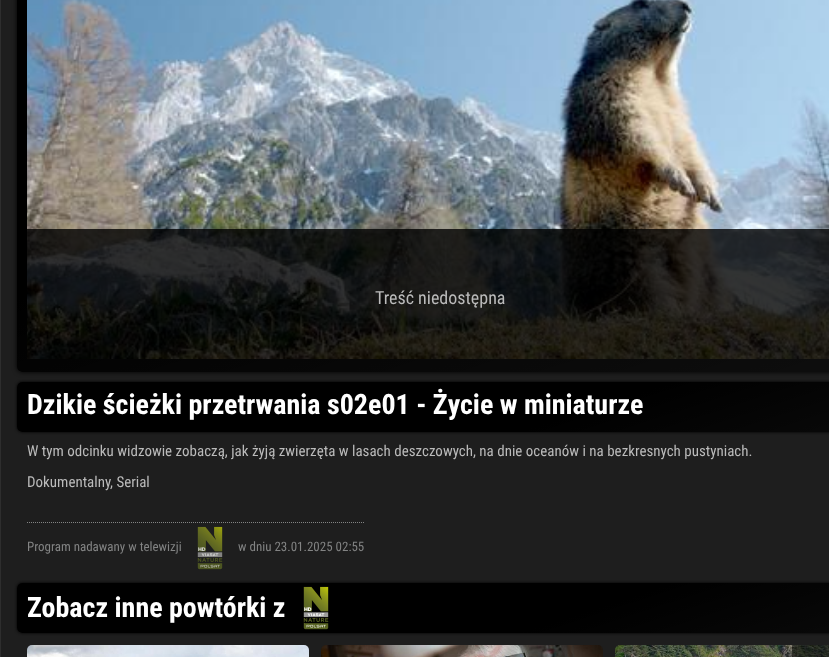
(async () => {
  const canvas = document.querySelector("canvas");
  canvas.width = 829;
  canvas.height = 657;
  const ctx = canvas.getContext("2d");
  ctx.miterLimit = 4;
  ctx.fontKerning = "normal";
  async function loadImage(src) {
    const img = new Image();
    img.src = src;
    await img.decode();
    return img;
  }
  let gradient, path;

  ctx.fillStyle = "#1e1e1e";
  ctx.fillRect(0, 0, 829, 657);
  ctx.fillStyle = "#2e2e2e";
  ctx.fillRect(0, 0, 1, 657);
  ctx.save();
  path = new Path2D("M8 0H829V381H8ZM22-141H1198C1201-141 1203-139 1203-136V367C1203 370 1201 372 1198 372H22C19 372 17 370 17 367V-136C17-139 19-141 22-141Z");
  ctx.clip(path, "evenodd");
  ctx.fillStyle = "#000000";
  ctx.filter = "blur(2.5px)";
  ctx.beginPath();
  ctx.roundRect(17, -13, 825, 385, 5);
  ctx.fill();
  ctx.filter = "none";
  ctx.restore();
  gradient = ctx.createLinearGradient(742, 522, 478, -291);
  gradient.addColorStop(0, "rgba(0, 0, 0, 0.4)");
  gradient.addColorStop(0.51, "#000000");
  ctx.fillStyle = gradient;
  ctx.beginPath();
  ctx.roundRect(17, -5, 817, 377, 5);
  ctx.fill();
  ctx.drawImage(await loadImage("img/1.png"), 27, 0, 802, 359);
  ctx.fillStyle = "rgba(0, 0, 0, 0.8)";
  ctx.fillRect(27, 229, 802, 130);
  ctx.save();
  path = new Path2D("M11 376H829V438H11ZM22 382H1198C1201 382 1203 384 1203 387V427C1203 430 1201 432 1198 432H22C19 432 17 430 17 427V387C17 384 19 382 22 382Z");
  ctx.clip(path, "evenodd");
  ctx.fillStyle = "#000000";
  ctx.filter = "blur(1.5px)";
  ctx.beginPath();
  ctx.roundRect(17, 382, 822, 50, 5);
  ctx.fill();
  ctx.filter = "none";
  ctx.restore();
  gradient = ctx.createLinearGradient(674, 604, 546, 210);
  gradient.addColorStop(0, "rgba(0, 0, 0, 0.4)");
  gradient.addColorStop(0.51, "#000000");
  ctx.fillStyle = gradient;
  ctx.beginPath();
  ctx.roundRect(17, 382, 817, 50, 5);
  ctx.fill();
  path = new Path2D("M27 522.5H364");
  ctx.strokeStyle = "#838484";
  ctx.setLineDash([1, 1]);
  ctx.stroke(path);
  ctx.drawImage(await loadImage("img/2.png"), 197, 526, 26, 44);
  ctx.save();
  path = new Path2D("M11 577H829V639H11ZM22 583H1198C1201 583 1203 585 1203 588V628C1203 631 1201 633 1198 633H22C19 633 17 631 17 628V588C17 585 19 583 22 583Z");
  ctx.clip(path, "evenodd");
  ctx.fillStyle = "#000000";
  ctx.filter = "blur(1.5px)";
  ctx.beginPath();
  ctx.roundRect(17, 583, 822, 50, 5);
  ctx.fill();
  ctx.filter = "none";
  ctx.restore();
  gradient = ctx.createLinearGradient(674, 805, 546, 411);
  gradient.addColorStop(0, "rgba(0, 0, 0, 0.4)");
  gradient.addColorStop(0.51, "#000000");
  ctx.fillStyle = gradient;
  ctx.beginPath();
  ctx.roundRect(17, 583, 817, 50, 5);
  ctx.fill();
  ctx.drawImage(await loadImage("img/3.png"), 303, 586, 26, 44);
  ctx.drawImage(await loadImage("img/4.png"), 27, 645, 282, 12);
  ctx.drawImage(await loadImage("img/5.png"), 321, 645, 282, 12);
  ctx.drawImage(await loadImage("img/6.png"), 615, 645, 214, 12);
  ctx.fillStyle = "rgba(0, 0, 0, 0.5)";
  ctx.fillRect(792, 645, 37, 12);
  ctx.font = "18px Roboto Condensed";
  ctx.fillStyle = "#bbbbbb";
  ctx.fillText("Treść niedostępna", 375, 304);
  ctx.font = "bold 28px Roboto Condensed";
  ctx.fillStyle = "#ffffff";
  ctx.fillText("Dzikie ścieżki przetrwania s02e01 - Życie w miniaturze", 27, 414);
  ctx.font = "15px Roboto Condensed";
  ctx.fillStyle = "#bbbbbb";
  for (const [text, x, y] of [
    ["W tym odcinku widzowie zobaczą, jak żyją zwierzęta w lasach deszczowych, na dnie oceanów i na bezkresnych pustyniach.", 27, 456],
    ["Dokumentalny", 27, 487],
    [", Serial", 110, 487],
  ]) {
    ctx.fillText(text, x, y);
  }
  ctx.font = "13px Roboto Condensed";
  ctx.fillStyle = "#838484";
  ctx.fillText("Program nadawany w telewizji", 27, 551);
  ctx.fillText("w dniu 23.01.2025 02:55", 238, 551);
  ctx.font = "bold 28px Roboto Condensed";
  ctx.fillStyle = "#ffffff";
  ctx.fillText("Zobacz inne powtórki z", 27, 617);
})();
